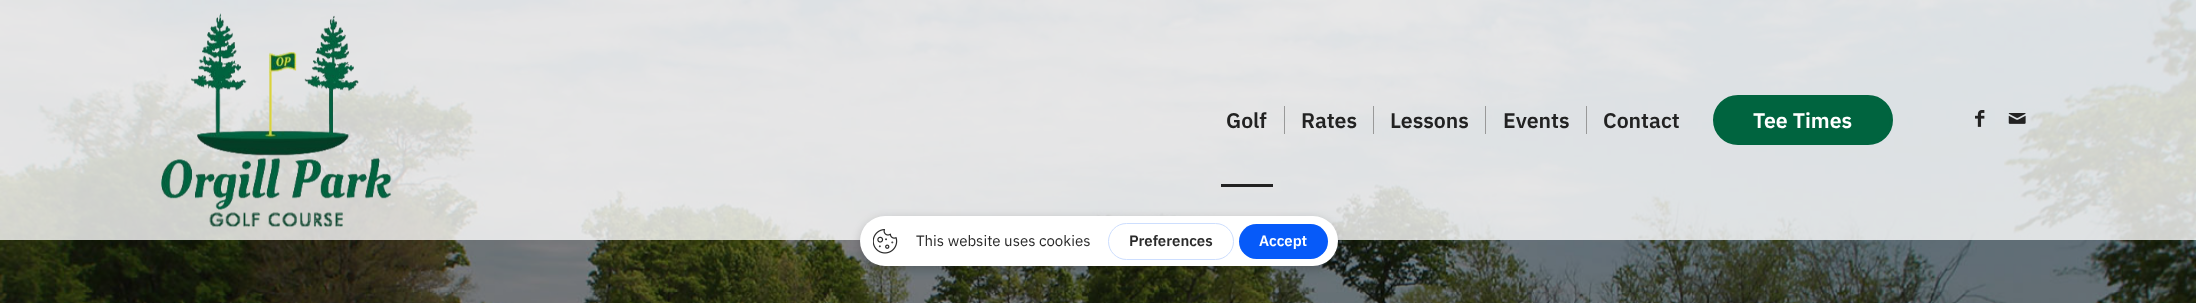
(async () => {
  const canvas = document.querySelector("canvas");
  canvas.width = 2196;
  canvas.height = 303;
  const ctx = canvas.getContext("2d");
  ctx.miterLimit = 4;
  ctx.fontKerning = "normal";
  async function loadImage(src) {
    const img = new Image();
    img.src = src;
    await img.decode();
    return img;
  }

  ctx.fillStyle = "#ffffff";
  ctx.fillRect(0, 0, 2196, 303);
  ctx.drawImage(await loadImage("img/1.png"), 0, 0, 2196, 303);
  ctx.fillStyle = "rgba(255, 255, 255, 0.8)";
  ctx.fillRect(0, 0, 2196, 240);
  ctx.drawImage(await loadImage("img/2.png"), 161, 13, 231, 214);
  for (const [x, y, w, h, color] of [
    [1221, 184, 52, 3, "#222222"],
    [1284, 106, 1, 28, "#999999"],
    [1373, 106, 1, 28, "#999999"],
    [1485, 106, 1, 28, "#999999"],
    [1586, 106, 1, 28, "#999999"],
  ]) {
    ctx.fillStyle = color;
    ctx.fillRect(x, y, w, h);
  }
  ctx.fillStyle = "#00643f";
  ctx.beginPath();
  ctx.roundRect(1714.5, 96.5, 177, 47, 23.5);
  ctx.fill();
  ctx.strokeStyle = "#00643f";
  ctx.lineWidth = 3;
  ctx.stroke();
  ctx.drawImage(await loadImage("img/3.png"), 1975, 110, 10, 17);
  ctx.drawImage(await loadImage("img/4.png"), 2008, 113, 18, 11);
  ctx.fillStyle = "rgba(0, 0, 0, 0.2)";
  ctx.filter = "blur(5px)";
  ctx.beginPath();
  ctx.roundRect(860, 219, 478, 50, 25);
  ctx.fill();
  ctx.filter = "none";
  ctx.fillStyle = "#ffffff";
  ctx.beginPath();
  ctx.roundRect(860, 216, 478, 50, 25);
  ctx.fill();
  ctx.drawImage(await loadImage("img/5.png"), 873, 229, 25, 25);
  ctx.beginPath();
  ctx.roundRect(1108.5, 223.5, 125, 36, 18);
  ctx.strokeStyle = "#cddefe";
  ctx.lineWidth = 1;
  ctx.stroke();
  ctx.fillStyle = "#065af9";
  ctx.beginPath();
  ctx.roundRect(1239, 224, 89, 35, 17.5);
  ctx.fill();
  ctx.font = "600 21.25px IBM Plex Sans";
  ctx.fillStyle = "#222222";
  for (const [text, x, y] of [
    ["Golf", 1226, 128],
    ["Rates", 1301, 128],
    ["Lessons", 1390, 128],
    ["Events", 1503, 128],
    ["Contact", 1603, 128],
  ]) {
    ctx.fillText(text, x, y);
  }
  ctx.fillStyle = "#ffffff";
  ctx.fillText("Tee Times", 1753, 128);
  ctx.font = "15px IBM Plex Sans";
  ctx.fillStyle = "#2a2a2a";
  ctx.fillText("This website uses cookies", 916, 246);
  ctx.font = "600 15px IBM Plex Sans";
  ctx.fillText("Preferences", 1129, 246);
  ctx.fillStyle = "#ffffff";
  ctx.fillText("Accept", 1259, 246);
})();
